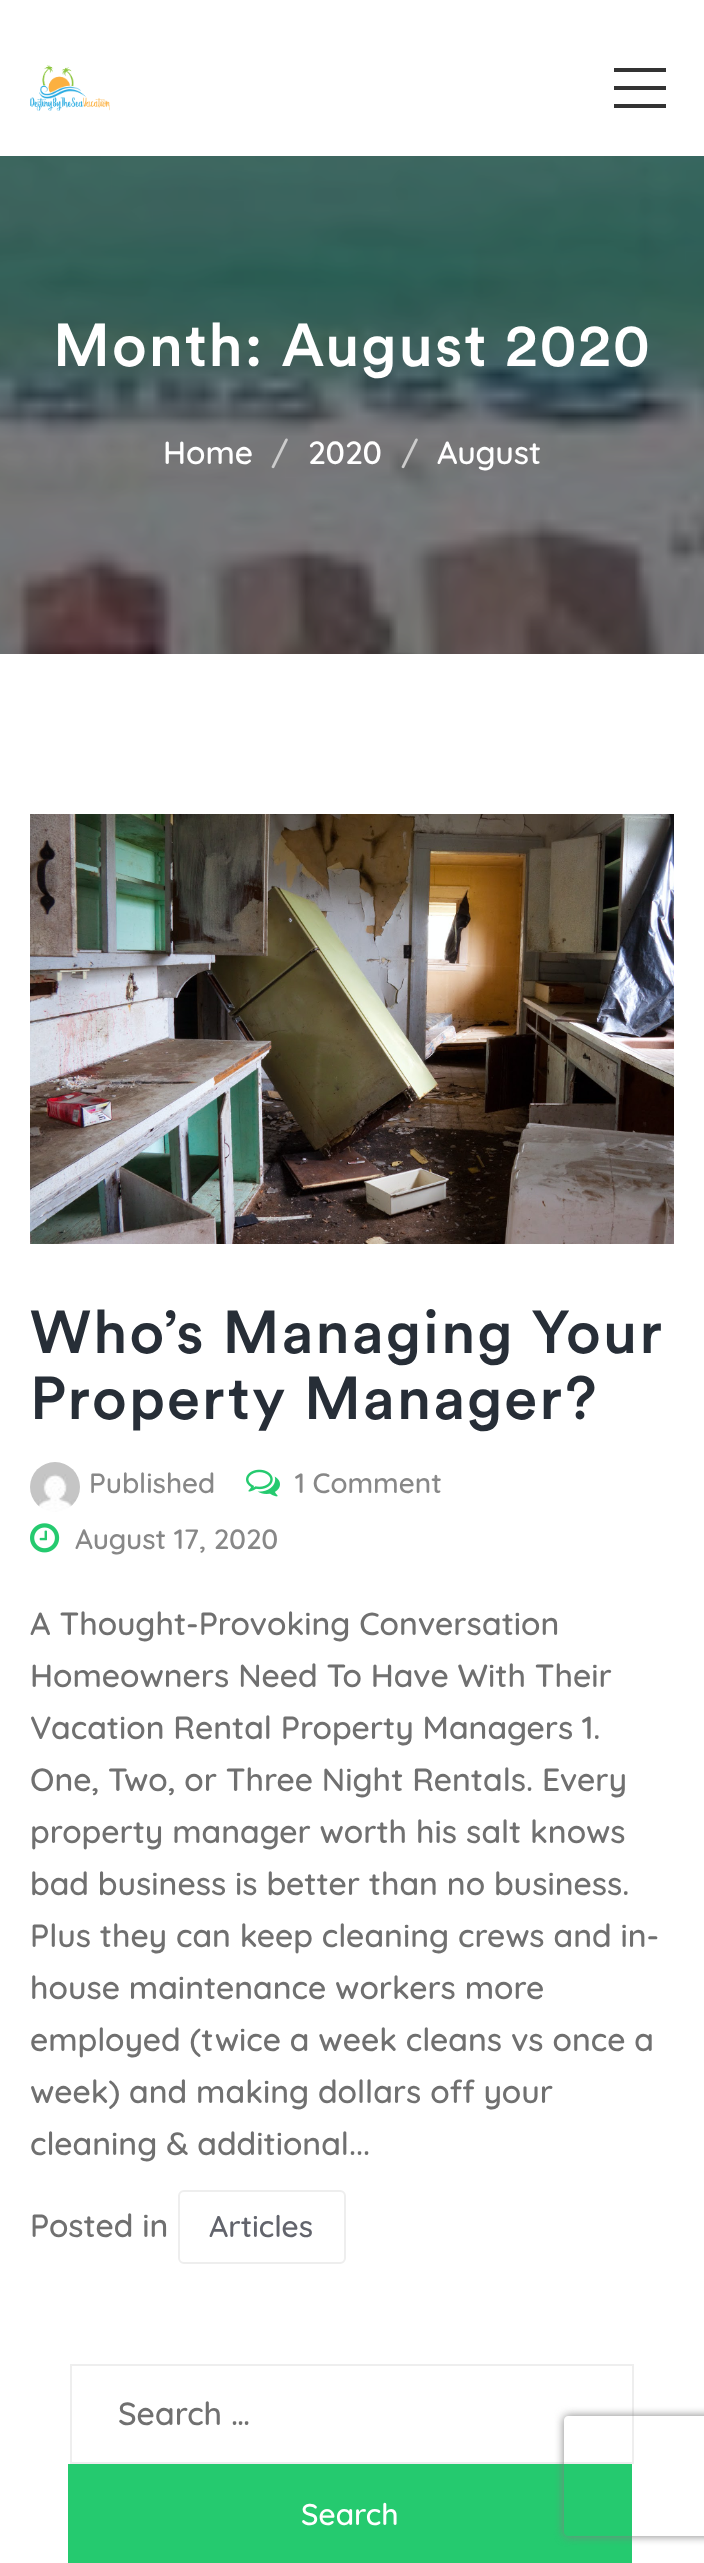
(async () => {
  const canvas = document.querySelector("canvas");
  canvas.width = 704;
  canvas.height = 2563;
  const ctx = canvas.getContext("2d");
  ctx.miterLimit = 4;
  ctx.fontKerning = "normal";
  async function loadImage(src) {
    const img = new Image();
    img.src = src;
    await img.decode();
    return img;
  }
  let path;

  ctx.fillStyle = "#ffffff";
  ctx.fillRect(0, 0, 704, 2563);
  ctx.drawImage(await loadImage("img/1.png"), 30, 65, 80, 46);
  for (const [x, y, w, h, color] of [
    [614, 86, 52, 4, "#333333"],
    [614, 68, 52, 4, "#333333"],
    [614, 104, 52, 4, "#333333"],
  ]) {
    ctx.fillStyle = color;
    ctx.fillRect(x, y, w, h);
  }
  ctx.drawImage(await loadImage("img/2.png"), 0, 156, 704, 498);
  ctx.drawImage(await loadImage("img/3.png"), 30, 814, 644, 430);
  ctx.drawImage(await loadImage("img/4.png"), 30, 1462, 50, 50);
  ctx.drawImage(await loadImage("img/5.png"), 246, 1469, 34, 28);
  ctx.drawImage(await loadImage("img/6.png"), 30, 1523, 30, 30);
  ctx.beginPath();
  ctx.roundRect(179, 2191, 166, 72, 5);
  ctx.strokeStyle = "#eeeeee";
  ctx.lineWidth = 2;
  ctx.stroke();
  ctx.strokeRect(71, 2365, 562, 98);
  ctx.fillStyle = "#25ca6f";
  ctx.fillRect(68, 2464, 564, 99);
  ctx.save();
  path = new Path2D("M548 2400H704V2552H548ZM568 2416H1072C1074 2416 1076 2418 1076 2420V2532C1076 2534 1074 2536 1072 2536H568C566 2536 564 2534 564 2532V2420C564 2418 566 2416 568 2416Z");
  ctx.clip(path, "evenodd");
  ctx.fillStyle = "#808080";
  ctx.filter = "blur(5px)";
  ctx.beginPath();
  ctx.roundRect(564, 2416, 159, 120, 4);
  ctx.fill();
  ctx.filter = "none";
  ctx.restore();
  ctx.letterSpacing = "2px";
  ctx.font = "500 60px Circular";
  ctx.fillStyle = "#ffffff";
  ctx.fillText("Month: August 2020", 53, 366);
  ctx.letterSpacing = "0px";
  ctx.font = "500 32px Quicksand";
  ctx.fillText("Home", 163, 464);
  ctx.fillStyle = "#cccccc";
  ctx.fillText("/", 271, 464);
  ctx.fillStyle = "#ffffff";
  ctx.fillText("2020", 308, 464);
  ctx.fillStyle = "#cccccc";
  ctx.fillText("/", 401, 464);
  ctx.fillStyle = "#ffffff";
  ctx.fillText("August", 437, 464);
  ctx.letterSpacing = "2px";
  ctx.font = "500 60px Circular";
  ctx.fillStyle = "#272e37";
  ctx.fillText("Who’s Managing Your", 30, 1353);
  ctx.fillText("Property Manager?", 30, 1419);
  ctx.letterSpacing = "0px";
  ctx.font = "500 28px Quicksand";
  ctx.fillStyle = "#888888";
  for (const [text, x, y] of [
    ["Published", 89, 1493],
    ["1 Comment", 295, 1493],
    ["August 17, 2020", 75, 1549],
  ]) {
    ctx.fillText(text, x, y);
  }
  ctx.font = "500 32px Quicksand";
  ctx.fillStyle = "#707070";
  for (const [text, x, y] of [
    ["A Thought-Provoking Conversation", 30, 1635],
    ["Homeowners Need To Have With Their", 30, 1687],
    ["Vacation Rental Property Managers 1.", 30, 1739],
    ["One, Two, or Three Night Rentals. Every", 30, 1791],
    ["property manager worth his salt knows", 30, 1843],
    ["bad business is better than no business.", 30, 1895],
    ["Plus they can keep cleaning crews and in-", 30, 1947],
    ["house maintenance workers more", 30, 1999],
    ["employed (twice a week cleans vs once a", 30, 2051],
    ["week) and making dollars off your", 30, 2103],
    ["cleaning & additional...", 30, 2155],
    ["Posted in", 30, 2237],
  ]) {
    ctx.fillText(text, x, y);
  }
  ctx.font = "500 30px Quicksand";
  ctx.fillStyle = "#62646c";
  ctx.fillText("Articles", 209, 2237);
  ctx.font = "500 32px Quicksand";
  ctx.fillStyle = "#707070";
  ctx.fillText("Search …", 118, 2425);
  ctx.font = "500 30px Quicksand";
  ctx.fillStyle = "#ffffff";
  ctx.fillText("Search", 301, 2525);
})();
